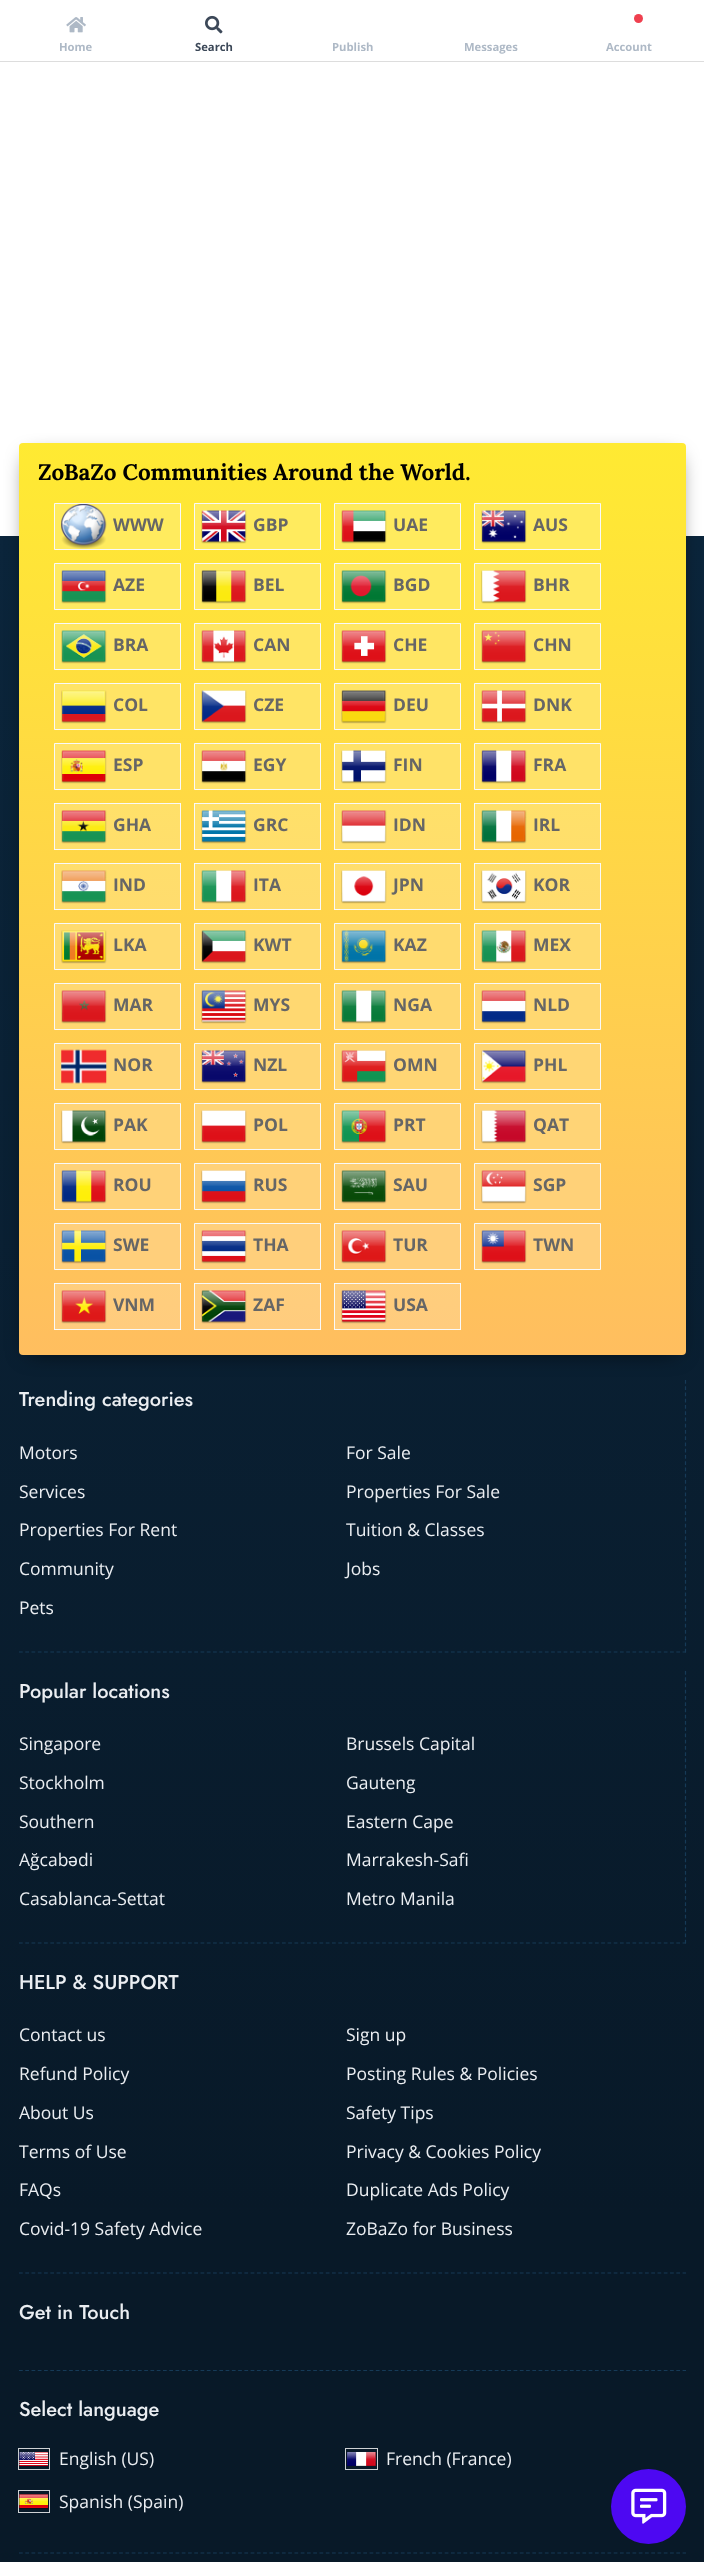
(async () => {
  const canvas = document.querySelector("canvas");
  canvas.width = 704;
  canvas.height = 2562;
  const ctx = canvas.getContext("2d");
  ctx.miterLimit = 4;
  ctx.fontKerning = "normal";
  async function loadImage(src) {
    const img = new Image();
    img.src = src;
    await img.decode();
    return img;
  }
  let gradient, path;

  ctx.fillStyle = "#ffffff";
  ctx.fillRect(0, 0, 704, 2562);
  ctx.fillStyle = "#dddddd";
  ctx.fillRect(0, 61, 704, 1);
  ctx.drawImage(await loadImage("img/1.png"), 66, 17, 20, 16);
  ctx.drawImage(await loadImage("img/2.png"), 205, 15, 18, 19);
  ctx.fillStyle = "#ef404f";
  ctx.beginPath();
  ctx.arc(638.5, 18.5, 4.5, 0, Math.PI * 2);
  ctx.fill();
  gradient = ctx.createLinearGradient(352, 536, 353, 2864);
  gradient.addColorStop(0, "#0b253b");
  gradient.addColorStop(0.72, "#081928");
  ctx.fillStyle = gradient;
  ctx.fillRect(0, 536, 704, 2026);
  path = new Path2D("M685.5 1380V1652.5");
  ctx.strokeStyle = "#163a57";
  ctx.lineWidth = 1.2;
  ctx.setLineDash([3.75, 2.5]);
  ctx.stroke(path);
  ctx.fillStyle = "rgba(0, 0, 0, 0.8)";
  ctx.filter = "blur(11px)";
  ctx.beginPath();
  ctx.rect(29, 459, 647, 892);
  ctx.fill();
  ctx.filter = "none";
  gradient = ctx.createLinearGradient(352, 442, 353, 1355);
  gradient.addColorStop(0, "#ffea32");
  gradient.addColorStop(1, "#ffbe5f");
  ctx.fillStyle = gradient;
  ctx.beginPath();
  ctx.roundRect(19, 443, 667, 912, 4);
  ctx.fill();
  gradient = ctx.createLinearGradient(352, 442, 353, 1355);
  gradient.addColorStop(0, "#ffee5b");
  gradient.addColorStop(1, "#ffcb7f");
  ctx.fillStyle = gradient;
  ctx.fillRect(335, 1284, 125, 45);
  ctx.fillRect(195, 1284, 125, 45);
  ctx.fillRect(55, 1284, 125, 45);
  ctx.fillRect(475, 864, 125, 45);
  ctx.fillRect(335, 864, 125, 45);
  ctx.fillRect(195, 864, 125, 45);
  ctx.fillRect(55, 864, 125, 45);
  ctx.fillRect(475, 804, 125, 45);
  ctx.fillRect(335, 804, 125, 45);
  ctx.fillRect(195, 804, 125, 45);
  ctx.fillRect(55, 804, 125, 45);
  ctx.fillStyle = "#ffeb5e";
  ctx.beginPath();
  ctx.rect(54.5, 503.5, 126, 46);
  ctx.fill();
  ctx.strokeStyle = "#f9f9f9";
  ctx.lineWidth = 1;
  ctx.setLineDash([]);
  ctx.stroke();
  ctx.drawImage(await loadImage("img/3.png"), 61, 504, 46, 45);
  ctx.beginPath();
  ctx.rect(194.5, 503.5, 126, 46);
  ctx.fill();
  ctx.stroke();
  ctx.drawImage(await loadImage("img/4.png"), 201, 510, 46, 34);
  ctx.beginPath();
  ctx.rect(334.5, 503.5, 126, 46);
  ctx.fill();
  ctx.stroke();
  ctx.drawImage(await loadImage("img/5.png"), 341, 510, 46, 34);
  ctx.beginPath();
  ctx.rect(474.5, 503.5, 126, 46);
  ctx.fill();
  ctx.stroke();
  ctx.drawImage(await loadImage("img/6.png"), 481, 510, 46, 34);
  ctx.fillStyle = "#ffe961";
  ctx.beginPath();
  ctx.rect(54.5, 563.5, 126, 46);
  ctx.fill();
  ctx.stroke();
  ctx.drawImage(await loadImage("img/7.png"), 61, 570, 46, 34);
  ctx.beginPath();
  ctx.rect(194.5, 563.5, 126, 46);
  ctx.fill();
  ctx.stroke();
  ctx.drawImage(await loadImage("img/8.png"), 201, 570, 46, 34);
  ctx.beginPath();
  ctx.rect(334.5, 563.5, 126, 46);
  ctx.fill();
  ctx.stroke();
  ctx.drawImage(await loadImage("img/9.png"), 341, 570, 46, 34);
  ctx.beginPath();
  ctx.rect(474.5, 563.5, 126, 46);
  ctx.fill();
  ctx.stroke();
  ctx.drawImage(await loadImage("img/10.png"), 481, 570, 46, 34);
  ctx.fillStyle = "#ffe663";
  ctx.beginPath();
  ctx.rect(54.5, 623.5, 126, 46);
  ctx.fill();
  ctx.stroke();
  ctx.drawImage(await loadImage("img/11.png"), 61, 630, 46, 34);
  ctx.beginPath();
  ctx.rect(194.5, 623.5, 126, 46);
  ctx.fill();
  ctx.stroke();
  ctx.drawImage(await loadImage("img/12.png"), 201, 630, 46, 34);
  ctx.beginPath();
  ctx.rect(334.5, 623.5, 126, 46);
  ctx.fill();
  ctx.stroke();
  ctx.drawImage(await loadImage("img/13.png"), 341, 630, 46, 34);
  ctx.beginPath();
  ctx.rect(474.5, 623.5, 126, 46);
  ctx.fill();
  ctx.stroke();
  ctx.drawImage(await loadImage("img/14.png"), 481, 630, 46, 34);
  ctx.fillStyle = "#ffe465";
  ctx.beginPath();
  ctx.rect(54.5, 683.5, 126, 46);
  ctx.fill();
  ctx.stroke();
  ctx.drawImage(await loadImage("img/15.png"), 61, 690, 46, 34);
  ctx.beginPath();
  ctx.rect(194.5, 683.5, 126, 46);
  ctx.fill();
  ctx.stroke();
  ctx.drawImage(await loadImage("img/16.png"), 201, 690, 46, 34);
  ctx.beginPath();
  ctx.rect(334.5, 683.5, 126, 46);
  ctx.fill();
  ctx.stroke();
  ctx.drawImage(await loadImage("img/17.png"), 341, 690, 46, 34);
  ctx.beginPath();
  ctx.rect(474.5, 683.5, 126, 46);
  ctx.fill();
  ctx.stroke();
  ctx.drawImage(await loadImage("img/18.png"), 481, 690, 46, 34);
  ctx.fillStyle = "#ffe268";
  ctx.beginPath();
  ctx.rect(54.5, 743.5, 126, 46);
  ctx.fill();
  ctx.stroke();
  ctx.drawImage(await loadImage("img/19.png"), 61, 750, 46, 34);
  ctx.beginPath();
  ctx.rect(194.5, 743.5, 126, 46);
  ctx.fill();
  ctx.stroke();
  ctx.drawImage(await loadImage("img/20.png"), 201, 750, 46, 34);
  ctx.beginPath();
  ctx.rect(334.5, 743.5, 126, 46);
  ctx.fill();
  ctx.stroke();
  ctx.drawImage(await loadImage("img/21.png"), 341, 750, 46, 34);
  ctx.beginPath();
  ctx.rect(474.5, 743.5, 126, 46);
  ctx.fill();
  ctx.stroke();
  ctx.drawImage(await loadImage("img/22.png"), 481, 750, 46, 34);
  ctx.strokeRect(54.5, 803.5, 126, 46);
  ctx.drawImage(await loadImage("img/23.png"), 61, 810, 46, 34);
  ctx.strokeRect(194.5, 803.5, 126, 46);
  ctx.drawImage(await loadImage("img/24.png"), 201, 810, 46, 34);
  ctx.strokeRect(334.5, 803.5, 126, 46);
  ctx.drawImage(await loadImage("img/25.png"), 341, 810, 46, 34);
  ctx.strokeRect(474.5, 803.5, 126, 46);
  ctx.drawImage(await loadImage("img/26.png"), 481, 810, 46, 34);
  ctx.strokeRect(54.5, 863.5, 126, 46);
  ctx.drawImage(await loadImage("img/27.png"), 61, 870, 46, 34);
  ctx.strokeRect(194.5, 863.5, 126, 46);
  ctx.drawImage(await loadImage("img/28.png"), 201, 870, 46, 34);
  ctx.strokeRect(334.5, 863.5, 126, 46);
  ctx.drawImage(await loadImage("img/29.png"), 341, 870, 46, 34);
  ctx.strokeRect(474.5, 863.5, 126, 46);
  ctx.drawImage(await loadImage("img/30.png"), 481, 870, 46, 34);
  ctx.fillStyle = "#ffdb6f";
  ctx.beginPath();
  ctx.rect(54.5, 923.5, 126, 46);
  ctx.fill();
  ctx.stroke();
  ctx.drawImage(await loadImage("img/31.png"), 61, 930, 46, 34);
  ctx.beginPath();
  ctx.rect(194.5, 923.5, 126, 46);
  ctx.fill();
  ctx.stroke();
  ctx.drawImage(await loadImage("img/32.png"), 201, 930, 46, 34);
  ctx.beginPath();
  ctx.rect(334.5, 923.5, 126, 46);
  ctx.fill();
  ctx.stroke();
  ctx.drawImage(await loadImage("img/33.png"), 341, 930, 46, 34);
  ctx.beginPath();
  ctx.rect(474.5, 923.5, 126, 46);
  ctx.fill();
  ctx.stroke();
  ctx.drawImage(await loadImage("img/34.png"), 481, 930, 46, 34);
  ctx.fillStyle = "#ffd871";
  ctx.beginPath();
  ctx.rect(54.5, 983.5, 126, 46);
  ctx.fill();
  ctx.stroke();
  ctx.drawImage(await loadImage("img/35.png"), 61, 990, 46, 34);
  ctx.beginPath();
  ctx.rect(194.5, 983.5, 126, 46);
  ctx.fill();
  ctx.stroke();
  ctx.drawImage(await loadImage("img/36.png"), 201, 990, 46, 34);
  ctx.beginPath();
  ctx.rect(334.5, 983.5, 126, 46);
  ctx.fill();
  ctx.stroke();
  ctx.drawImage(await loadImage("img/37.png"), 341, 990, 46, 34);
  ctx.beginPath();
  ctx.rect(474.5, 983.5, 126, 46);
  ctx.fill();
  ctx.stroke();
  ctx.drawImage(await loadImage("img/38.png"), 481, 990, 46, 34);
  ctx.fillStyle = "#ffd674";
  ctx.beginPath();
  ctx.rect(54.5, 1043.5, 126, 46);
  ctx.fill();
  ctx.stroke();
  ctx.drawImage(await loadImage("img/39.png"), 61, 1049, 46, 35);
  ctx.beginPath();
  ctx.rect(194.5, 1043.5, 126, 46);
  ctx.fill();
  ctx.stroke();
  ctx.drawImage(await loadImage("img/40.png"), 201, 1050, 46, 34);
  ctx.beginPath();
  ctx.rect(334.5, 1043.5, 126, 46);
  ctx.fill();
  ctx.stroke();
  ctx.drawImage(await loadImage("img/41.png"), 341, 1050, 46, 34);
  ctx.beginPath();
  ctx.rect(474.5, 1043.5, 126, 46);
  ctx.fill();
  ctx.stroke();
  ctx.drawImage(await loadImage("img/42.png"), 481, 1050, 46, 34);
  ctx.fillStyle = "#ffd476";
  ctx.beginPath();
  ctx.rect(54.5, 1103.5, 126, 46);
  ctx.fill();
  ctx.stroke();
  ctx.drawImage(await loadImage("img/43.png"), 61, 1110, 46, 34);
  ctx.beginPath();
  ctx.rect(194.5, 1103.5, 126, 46);
  ctx.fill();
  ctx.stroke();
  ctx.drawImage(await loadImage("img/44.png"), 201, 1110, 46, 34);
  ctx.beginPath();
  ctx.rect(334.5, 1103.5, 126, 46);
  ctx.fill();
  ctx.stroke();
  ctx.drawImage(await loadImage("img/45.png"), 341, 1110, 46, 34);
  ctx.beginPath();
  ctx.rect(474.5, 1103.5, 126, 46);
  ctx.fill();
  ctx.stroke();
  ctx.drawImage(await loadImage("img/46.png"), 481, 1110, 46, 34);
  ctx.fillStyle = "#ffd278";
  ctx.beginPath();
  ctx.rect(54.5, 1163.5, 126, 46);
  ctx.fill();
  ctx.stroke();
  ctx.drawImage(await loadImage("img/47.png"), 61, 1170, 46, 34);
  ctx.fillStyle = "#ffd178";
  ctx.beginPath();
  ctx.rect(194.5, 1163.5, 126, 46);
  ctx.fill();
  ctx.stroke();
  ctx.drawImage(await loadImage("img/48.png"), 201, 1170, 46, 34);
  ctx.beginPath();
  ctx.rect(334.5, 1163.5, 126, 46);
  ctx.fill();
  ctx.stroke();
  ctx.drawImage(await loadImage("img/49.png"), 341, 1170, 46, 34);
  ctx.beginPath();
  ctx.rect(474.5, 1163.5, 126, 46);
  ctx.fill();
  ctx.stroke();
  ctx.drawImage(await loadImage("img/50.png"), 481, 1170, 46, 34);
  ctx.fillStyle = "#ffcf7b";
  ctx.beginPath();
  ctx.rect(54.5, 1223.5, 126, 46);
  ctx.fill();
  ctx.stroke();
  ctx.drawImage(await loadImage("img/51.png"), 61, 1230, 46, 34);
  ctx.beginPath();
  ctx.rect(194.5, 1223.5, 126, 46);
  ctx.fill();
  ctx.stroke();
  ctx.drawImage(await loadImage("img/52.png"), 201, 1230, 46, 34);
  ctx.beginPath();
  ctx.rect(334.5, 1223.5, 126, 46);
  ctx.fill();
  ctx.stroke();
  ctx.drawImage(await loadImage("img/53.png"), 341, 1230, 46, 34);
  ctx.beginPath();
  ctx.rect(474.5, 1223.5, 126, 46);
  ctx.fill();
  ctx.stroke();
  ctx.drawImage(await loadImage("img/54.png"), 481, 1230, 46, 34);
  ctx.strokeRect(54.5, 1283.5, 126, 46);
  ctx.drawImage(await loadImage("img/55.png"), 61, 1290, 46, 34);
  ctx.strokeRect(194.5, 1283.5, 126, 46);
  ctx.drawImage(await loadImage("img/56.png"), 201, 1290, 46, 34);
  ctx.strokeRect(334.5, 1283.5, 126, 46);
  ctx.drawImage(await loadImage("img/57.png"), 341, 1290, 46, 34);
  path = new Path2D("M19 1652H686");
  ctx.strokeStyle = "#163a57";
  ctx.lineWidth = 1.2;
  ctx.setLineDash([3.75, 2.51]);
  ctx.stroke(path);
  path = new Path2D("M685.5 1671V1944");
  ctx.setLineDash([3.75, 2.5]);
  ctx.stroke(path);
  path = new Path2D("M19 1943H686");
  ctx.setLineDash([3.75, 2.51]);
  ctx.stroke(path);
  path = new Path2D("M19 2273H686");
  ctx.stroke(path);
  path = new Path2D("M19 2370.5H686");
  ctx.stroke(path);
  path = new Path2D("M19 2553H686");
  ctx.stroke(path);
  ctx.strokeStyle = "#ced1d4";
  ctx.lineWidth = 1;
  ctx.setLineDash([]);
  ctx.strokeRect(18.5, 2448.5, 31, 21);
  ctx.drawImage(await loadImage("img/58.png"), 18, 2452, 31, 14);
  ctx.strokeRect(345.5, 2448.5, 32, 21);
  ctx.drawImage(await loadImage("img/59.png"), 346, 2452, 30, 14);
  ctx.strokeRect(18.5, 2490.5, 31, 22);
  ctx.drawImage(await loadImage("img/60.png"), 18, 2494, 31, 15);
  ctx.fillStyle = "#4d08f2";
  ctx.beginPath();
  ctx.arc(648.5, 2506.5, 37.5, 0, Math.PI * 2);
  ctx.fill();
  ctx.drawImage(await loadImage("img/61.png"), 631, 2488, 36, 36);
  ctx.font = "bold 11.25px Open Sans";
  ctx.fillStyle = "#aeb9c6";
  ctx.fillText("Home", 59, 51);
  ctx.fillStyle = "#3c4858";
  ctx.fillText("Search", 195, 51);
  ctx.fillStyle = "#aeb9c6";
  for (const [text, x, y] of [
    ["Publish", 332, 51],
    ["Messages", 464, 51],
    ["Account", 606, 51],
  ]) {
    ctx.fillText(text, x, y);
  }
  ctx.font = "bold 22.5px Lora";
  ctx.fillStyle = "#000000";
  ctx.fillText("ZoBaZo Communities Around the World.", 38, 480);
  ctx.font = "bold 17.5px Open Sans";
  ctx.fillStyle = "#666666";
  for (const [text, x, y] of [
    ["WWW", 113, 531],
    ["GBP", 253, 531],
    ["UAE", 393, 531],
    ["AUS", 533, 531],
    ["AZE", 113, 591],
    ["BEL", 253, 591],
    ["BGD", 393, 591],
    ["BHR", 533, 591],
    ["BRA", 113, 651],
    ["CAN", 253, 651],
    ["CHE", 393, 651],
    ["CHN", 533, 651],
    ["COL", 113, 711],
    ["CZE", 253, 711],
    ["DEU", 393, 711],
    ["DNK", 533, 711],
    ["ESP", 113, 771],
    ["EGY", 253, 771],
    ["FIN", 393, 771],
    ["FRA", 533, 771],
    ["GHA", 113, 831],
    ["GRC", 253, 831],
    ["IDN", 393, 831],
    ["IRL", 533, 831],
    ["IND", 113, 891],
    ["ITA", 253, 891],
    ["JPN", 393, 891],
    ["KOR", 533, 891],
    ["LKA", 113, 951],
    ["KWT", 253, 951],
    ["KAZ", 393, 951],
    ["MEX", 533, 951],
    ["MAR", 113, 1011],
    ["MYS", 253, 1011],
    ["NGA", 393, 1011],
    ["NLD", 533, 1011],
    ["NOR", 113, 1071],
    ["NZL", 253, 1071],
    ["OMN", 393, 1071],
    ["PHL", 533, 1071],
    ["PAK", 113, 1131],
    ["POL", 253, 1131],
    ["PRT", 393, 1131],
    ["QAT", 533, 1131],
    ["ROU", 113, 1191],
    ["RUS", 253, 1191],
    ["SAU", 393, 1191],
    ["SGP", 533, 1191],
    ["SWE", 113, 1251],
    ["THA", 253, 1251],
    ["TUR", 393, 1251],
    ["TWN", 533, 1251],
    ["VNM", 113, 1311],
    ["ZAF", 253, 1311],
    ["USA", 393, 1311],
  ]) {
    ctx.fillText(text, x, y);
  }
  ctx.font = "500 20px Jost";
  ctx.fillStyle = "#ebeef2";
  ctx.fillText("Trending categories", 19, 1406);
  ctx.font = "17.5px Open Sans";
  for (const [text, x, y] of [
    ["Motors", 19, 1459],
    ["For Sale", 346, 1459],
    ["Services", 19, 1498],
    ["Properties For Sale", 346, 1498],
    ["Properties For Rent", 19, 1536],
    ["Tuition & Classes", 346, 1536],
    ["Community", 19, 1575],
    ["Jobs", 346, 1575],
    ["Pets", 19, 1614],
  ]) {
    ctx.fillText(text, x, y);
  }
  ctx.font = "500 20px Jost";
  ctx.fillText("Popular locations", 19, 1698);
  ctx.font = "17.5px Open Sans";
  for (const [text, x, y] of [
    ["Singapore", 19, 1750],
    ["Brussels Capital", 346, 1750],
    ["Stockholm", 19, 1789],
    ["Gauteng", 346, 1789],
    ["Southern", 19, 1828],
    ["Eastern Cape", 346, 1828],
    ["Ağcab", 19, 1866],
  ]) {
    ctx.fillText(text, x, y);
  }
  ctx.font = "17.5px Liberation Sans";
  ctx.fillText("ǝ", 68, 1866);
  ctx.font = "17.5px Open Sans";
  for (const [text, x, y] of [
    ["di", 78, 1866],
    ["Marrakesh-Safi", 346, 1866],
    ["Casablanca-Settat", 19, 1905],
    ["Metro Manila", 346, 1905],
  ]) {
    ctx.fillText(text, x, y);
  }
  ctx.font = "500 20px Jost";
  ctx.fillText("HELP & SUPPORT", 19, 1989);
  ctx.font = "17.5px Open Sans";
  for (const [text, x, y] of [
    ["Contact us", 19, 2041],
    ["Sign up", 346, 2041],
    ["Refund Policy", 19, 2080],
    ["Posting Rules & Policies", 346, 2080],
    ["About Us", 19, 2119],
    ["Safety Tips", 346, 2119],
    ["Terms of Use", 19, 2158],
    ["Privacy & Cookies Policy", 346, 2158],
    ["FAQs", 19, 2196],
    ["Duplicate Ads Policy", 346, 2196],
    ["Covid-19 Safety Advice", 19, 2235],
    ["ZoBaZo for Business", 346, 2235],
  ]) {
    ctx.fillText(text, x, y);
  }
  ctx.font = "500 20px Jost";
  ctx.fillText("Get in Touch", 19, 2319);
  ctx.fillText("Select language", 19, 2416);
  ctx.font = "17.5px Open Sans";
  for (const [text, x, y] of [
    ["English (US)", 59, 2465],
    ["French (France)", 386, 2465],
    ["Spanish (Spain)", 59, 2508],
  ]) {
    ctx.fillText(text, x, y);
  }
})();
